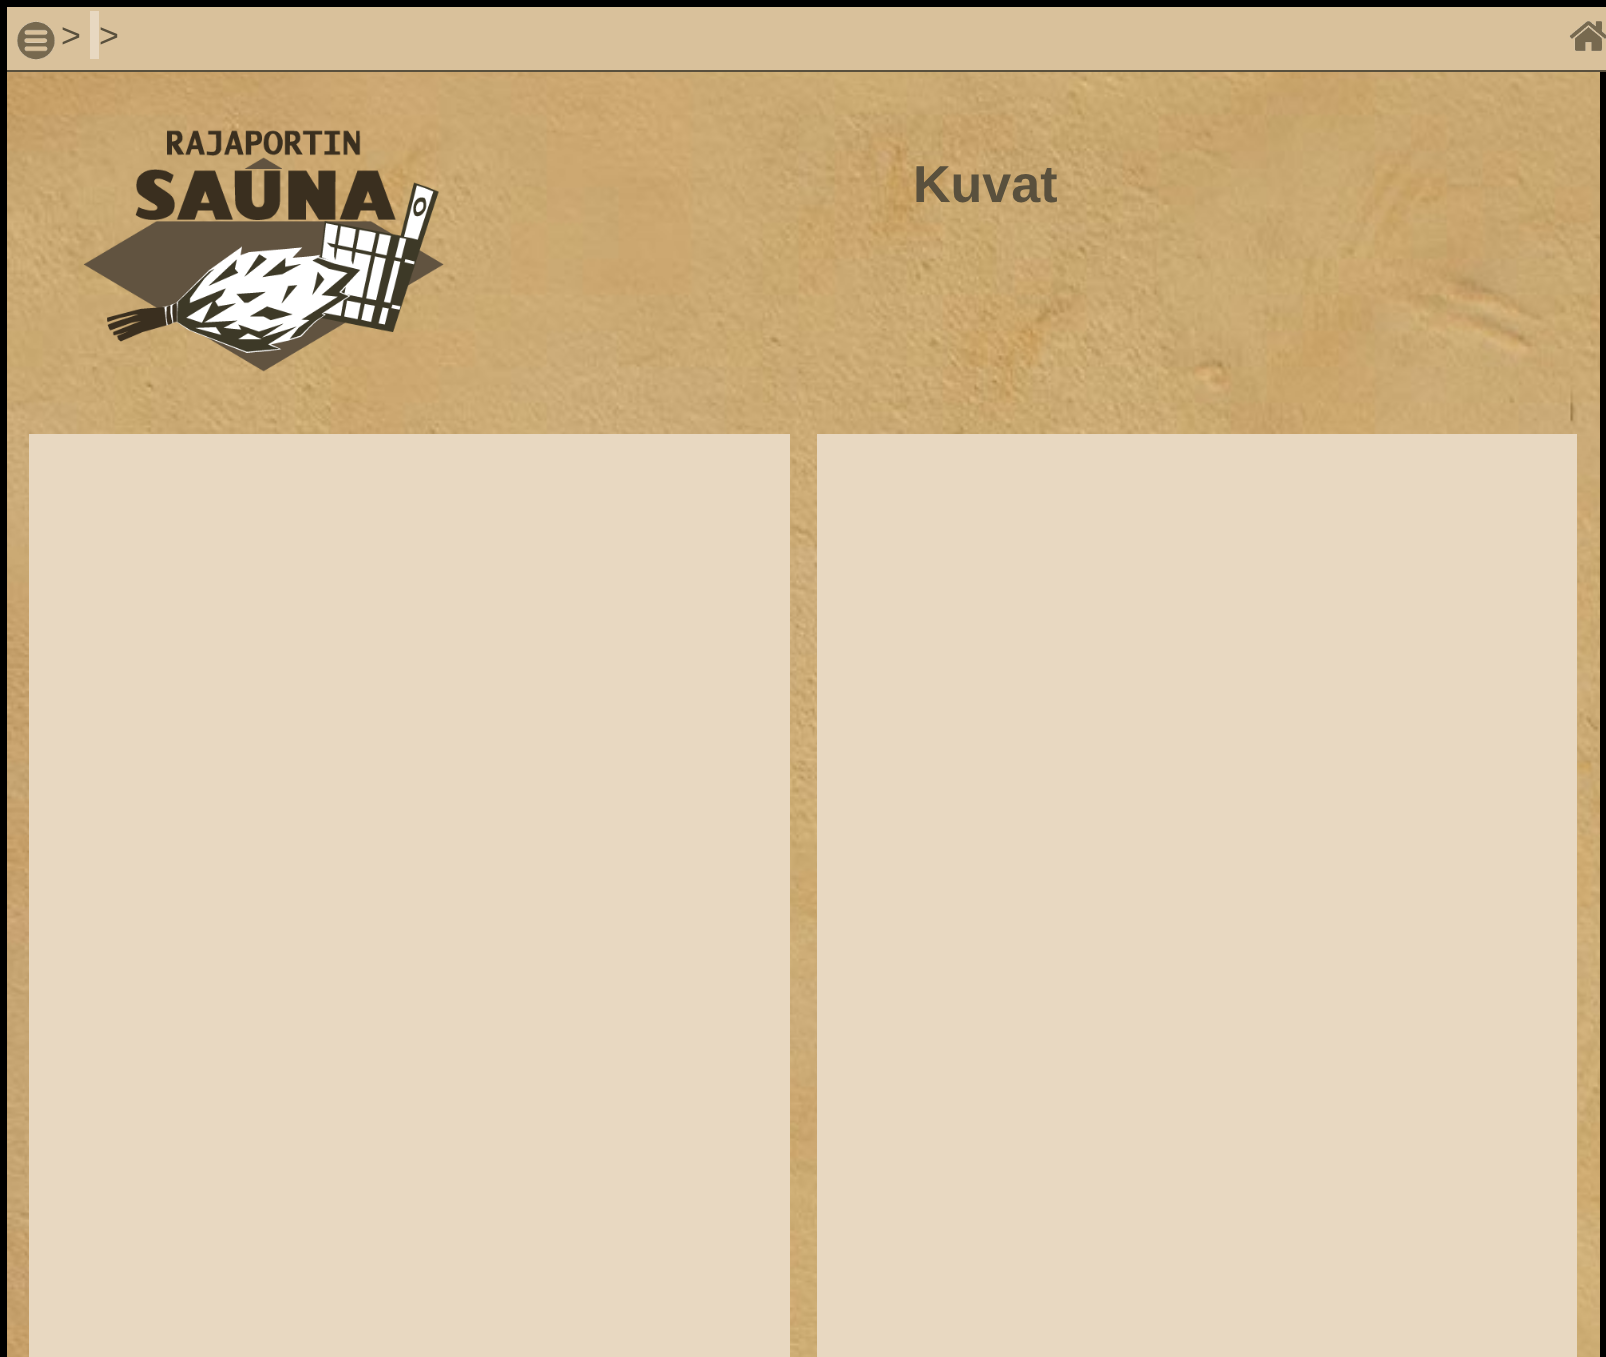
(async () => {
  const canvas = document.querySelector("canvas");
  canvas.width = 1606;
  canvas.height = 1357;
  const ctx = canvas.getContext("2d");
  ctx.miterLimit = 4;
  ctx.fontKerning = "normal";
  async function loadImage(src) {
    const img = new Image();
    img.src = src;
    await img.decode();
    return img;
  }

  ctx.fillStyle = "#ffffff";
  ctx.fillRect(0, 0, 1606, 1357);
  ctx.drawImage(await loadImage("img/1.png"), 7, 72, 1593, 1285);
  ctx.strokeStyle = "#000000";
  ctx.lineWidth = 7;
  ctx.strokeRect(3.5, 3.5, 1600, 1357);
  ctx.fillStyle = "#d9c19b";
  ctx.fillRect(7, 7, 1599, 63);
  ctx.fillStyle = "#59503d";
  ctx.fillRect(7, 70, 1599, 2);
  ctx.drawImage(await loadImage("img/2.png"), 17, 21, 38, 39);
  ctx.fillStyle = "#e8d8c1";
  ctx.fillRect(90, 11, 9, 48);
  ctx.drawImage(await loadImage("img/3.png"), 1569, 21, 37, 30);
  ctx.drawImage(await loadImage("img/4.png"), 83, 130, 361, 242);
  ctx.fillRect(29, 434, 761, 923);
  ctx.fillRect(817, 434, 760, 923);
  ctx.font = "34px Liberation Sans";
  ctx.fillStyle = "#59503d";
  ctx.fillText(">", 61, 47);
  ctx.fillText(">", 99, 47);
  ctx.font = "bold 52px Liberation Sans";
  ctx.fillText("Kuvat", 913, 202);
})();
